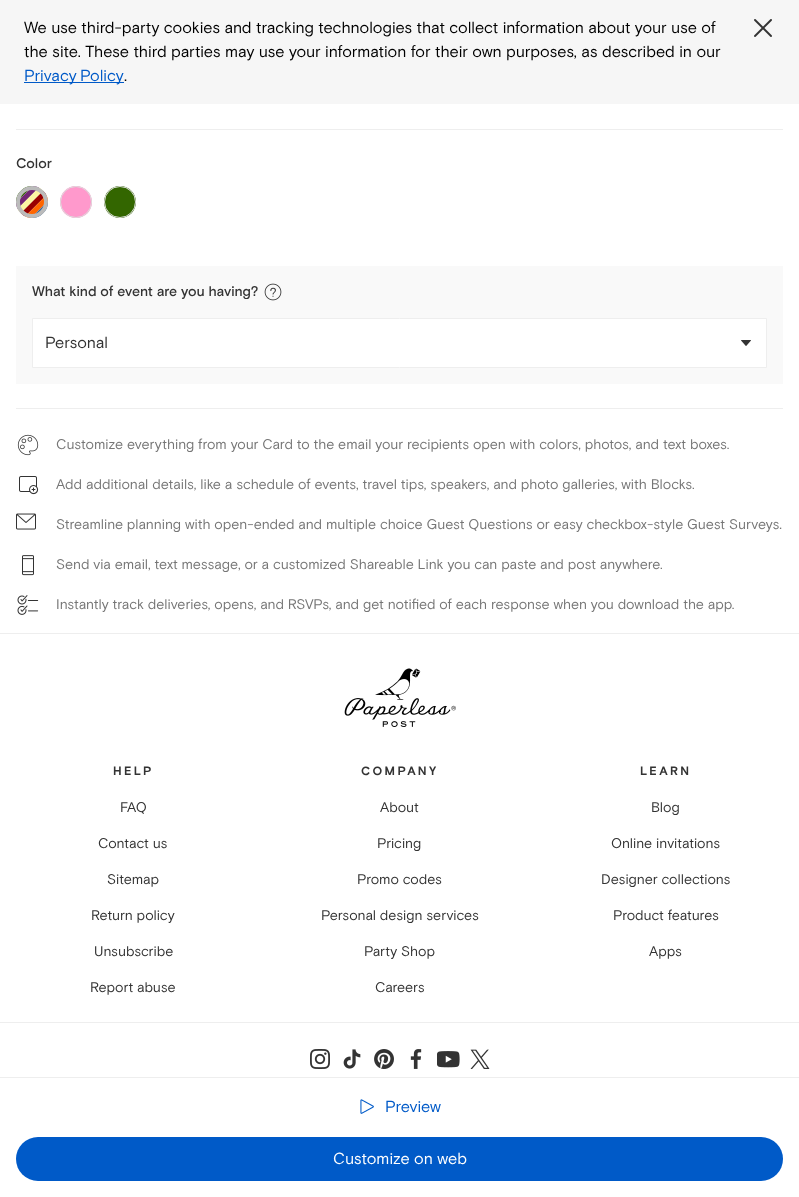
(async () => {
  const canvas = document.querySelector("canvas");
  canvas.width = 799;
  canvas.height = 1197;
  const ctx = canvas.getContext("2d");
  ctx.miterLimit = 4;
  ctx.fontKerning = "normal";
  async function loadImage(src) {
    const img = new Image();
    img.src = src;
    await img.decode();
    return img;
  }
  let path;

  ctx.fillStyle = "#ffffff";
  ctx.fillRect(0, 0, 799, 1197);
  ctx.fillStyle = "#f6f6f6";
  ctx.fillRect(0, 0, 799, 104);
  ctx.fillStyle = "#005ac8";
  ctx.fillRect(24, 82, 100, 1);
  ctx.drawImage(await loadImage("img/1.png"), 754, 19, 18, 18);
  ctx.fillStyle = "#eeeeee";
  ctx.fillRect(16, 129, 767, 1);
  ctx.drawImage(await loadImage("img/2.png"), 16, 186, 32, 32);
  ctx.beginPath();
  ctx.arc(32, 202, 14, 0, Math.PI * 2);
  ctx.strokeStyle = "#bbbbbb";
  ctx.lineWidth = 4;
  ctx.stroke();
  ctx.fillStyle = "#ff99cc";
  path = new Path2D("M76 186C67 186 60 193 60 202C60 211 67 218 76 218C85 218 92 211 92 202C92 193 85 186 76 186Z");
  ctx.fill(path);
  ctx.beginPath();
  ctx.arc(76, 202, 15.5, 0, Math.PI * 2);
  ctx.strokeStyle = "#dddddd";
  ctx.lineWidth = 1;
  ctx.stroke();
  ctx.fillStyle = "#336600";
  path = new Path2D("M120 186C111 186 104 193 104 202C104 211 111 218 120 218C129 218 136 211 136 202C136 193 129 186 120 186Z");
  ctx.fill(path);
  ctx.beginPath();
  ctx.arc(120, 202, 15.5, 0, Math.PI * 2);
  ctx.stroke();
  ctx.fillStyle = "#f9f9f9";
  ctx.fillRect(16, 266, 767, 118);
  ctx.drawImage(await loadImage("img/3.png"), 264, 283, 18, 18);
  ctx.fillStyle = "#ffffff";
  ctx.beginPath();
  ctx.rect(32.5, 318.5, 734, 49);
  ctx.fill();
  ctx.strokeStyle = "#eeeeee";
  ctx.stroke();
  ctx.drawImage(await loadImage("img/4.png"), 741, 340, 10, 6);
  ctx.fillStyle = "#eeeeee";
  ctx.fillRect(16, 408, 767, 1);
  ctx.drawImage(await loadImage("img/5.png"), 17, 434, 22, 22);
  ctx.drawImage(await loadImage("img/6.png"), 19, 476, 20, 19);
  ctx.drawImage(await loadImage("img/7.png"), 16, 513, 20, 17);
  ctx.drawImage(await loadImage("img/8.png"), 22, 555, 12, 21);
  ctx.drawImage(await loadImage("img/9.png"), 17, 595, 22, 20);
  ctx.fillRect(0, 1077, 799, 1);
  ctx.drawImage(await loadImage("img/10.png"), 360, 1099, 14, 15);
  ctx.fillStyle = "#005ac8";
  ctx.beginPath();
  ctx.roundRect(16, 1137, 767, 44, 22);
  ctx.fill();
  ctx.fillStyle = "#eeeeee";
  ctx.fillRect(0, 633, 799, 1);
  ctx.drawImage(await loadImage("img/11.png"), 344, 668, 112, 59);
  ctx.fillRect(0, 1022, 799, 1);
  ctx.drawImage(await loadImage("img/12.png"), 310, 1049, 20, 20);
  ctx.drawImage(await loadImage("img/13.png"), 343, 1049, 18, 20);
  ctx.drawImage(await loadImage("img/14.png"), 374, 1049, 20, 20);
  ctx.drawImage(await loadImage("img/15.png"), 410, 1049, 12, 20);
  ctx.drawImage(await loadImage("img/16.png"), 437, 1051, 23, 17);
  ctx.drawImage(await loadImage("img/17.png"), 470, 1049, 20, 20);
  ctx.font = "16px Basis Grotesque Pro";
  ctx.fillStyle = "#000000";
  ctx.fillText("We use third-party cookies and tracking technologies that collect information about your use of", 24, 33);
  ctx.fillText("the site. These third parties may use your information for their own purposes, as described in our", 24, 57);
  ctx.wordSpacing = "-1px";
  ctx.fillStyle = "#005ac8";
  ctx.fillText("Privacy Policy", 24, 81);
  ctx.wordSpacing = "0px";
  ctx.fillStyle = "#000000";
  ctx.fillText(".", 124, 81);
  ctx.font = "500 14px Basis Grotesque Pro";
  ctx.fillStyle = "#333333";
  ctx.fillText("Color", 16, 168);
  ctx.fillText("What kind of event are you having?", 32, 296);
  ctx.font = "16px Basis Grotesque Pro";
  ctx.fillText("Personal", 45, 348);
  ctx.font = "14px Basis Grotesque Pro";
  ctx.fillStyle = "#767676";
  for (const [text, x, y] of [
    ["Customize everything from your Card to the email your recipients open with colors, photos, and text boxes.", 56, 449],
    ["Add additional details, like a schedule of events, travel tips, speakers, and photo galleries, with Blocks.", 56, 489],
    ["Streamline planning with open-ended and multiple choice Guest Questions or easy checkbox-style Guest Surveys.", 56, 529],
    ["Send via email, text message, or a customized Shareable Link you can paste and post anywhere.", 56, 569],
    ["Instantly track deliveries, opens, and RSVPs, and get notified of each response when you download the app.", 56, 609],
  ]) {
    ctx.fillText(text, x, y);
  }
  ctx.font = "16px Basis Grotesque Pro";
  ctx.fillStyle = "#005ac8";
  ctx.fillText("Preview", 385, 1112);
  ctx.fillStyle = "#ffffff";
  ctx.fillText("Customize on web", 333, 1164);
  ctx.letterSpacing = "2.5px";
  ctx.font = "bold 12px Basis Grotesque Pro";
  ctx.fillStyle = "#333333";
  ctx.fillText("HELP", 113, 775);
  ctx.letterSpacing = "0px";
  ctx.font = "14px Basis Grotesque Pro";
  for (const [text, x, y] of [
    ["FAQ", 120, 812],
    ["Contact us", 98, 848],
    ["Sitemap", 107, 884],
    ["Return policy", 91, 920],
    ["Unsubscribe", 94, 956],
    ["Report abuse", 90, 992],
  ]) {
    ctx.fillText(text, x, y);
  }
  ctx.letterSpacing = "2.5px";
  ctx.font = "bold 12px Basis Grotesque Pro";
  ctx.fillText("COMPANY", 361, 775);
  ctx.letterSpacing = "0px";
  ctx.font = "14px Basis Grotesque Pro";
  for (const [text, x, y] of [
    ["About", 380, 812],
    ["Pricing", 377, 848],
    ["Promo codes", 357, 884],
    ["Personal design services", 321, 920],
    ["Party Shop", 364, 956],
    ["Careers", 375, 992],
  ]) {
    ctx.fillText(text, x, y);
  }
  ctx.letterSpacing = "2.5px";
  ctx.font = "bold 12px Basis Grotesque Pro";
  ctx.fillText("LEARN", 640, 775);
  ctx.letterSpacing = "0px";
  ctx.font = "14px Basis Grotesque Pro";
  for (const [text, x, y] of [
    ["Blog", 651, 812],
    ["Online invitations", 611, 848],
    ["Designer collections", 601, 884],
    ["Product features", 613, 920],
    ["Apps", 649, 956],
  ]) {
    ctx.fillText(text, x, y);
  }
})();
